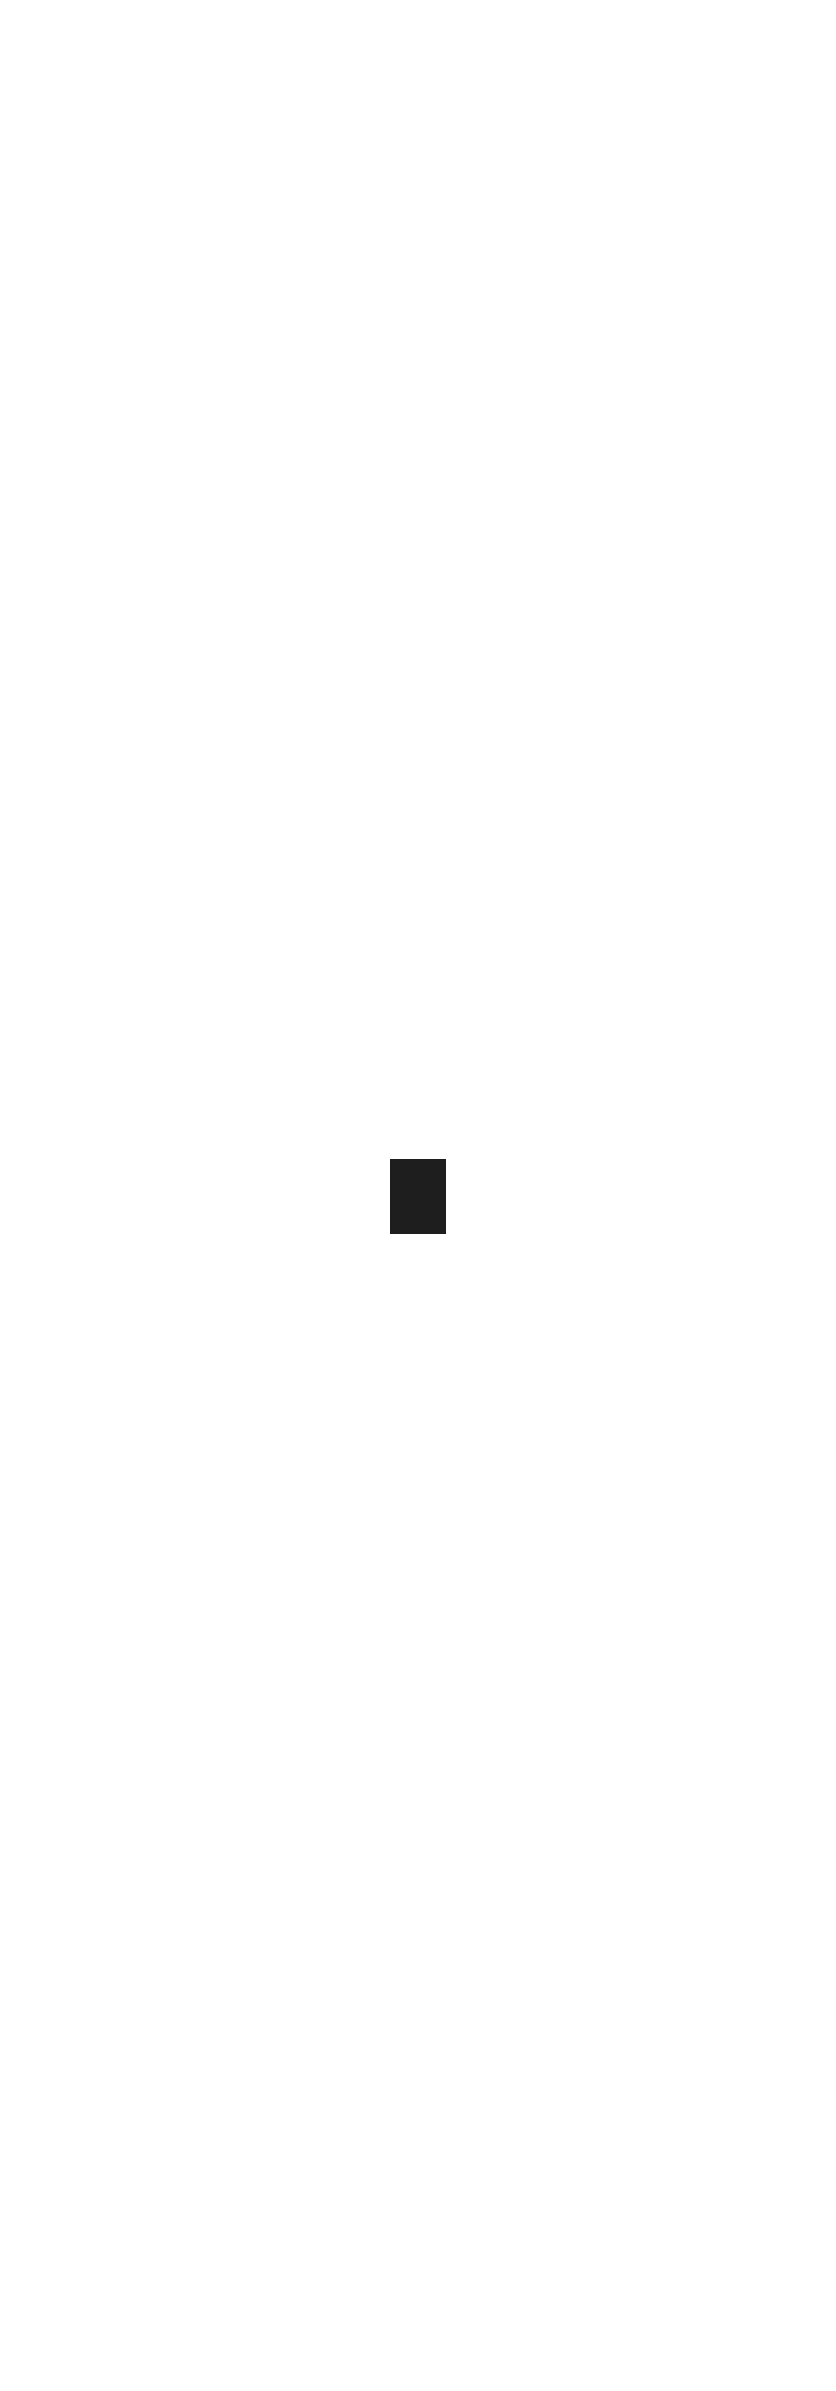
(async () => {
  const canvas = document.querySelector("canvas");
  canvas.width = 836;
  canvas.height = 2391;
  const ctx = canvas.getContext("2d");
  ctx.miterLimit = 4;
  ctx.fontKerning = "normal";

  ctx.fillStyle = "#ffffff";
  ctx.fillRect(0, 0, 836, 2391);
  ctx.fillStyle = "#1e1e1e";
  ctx.fillRect(390, 1159, 56, 75);
})();
